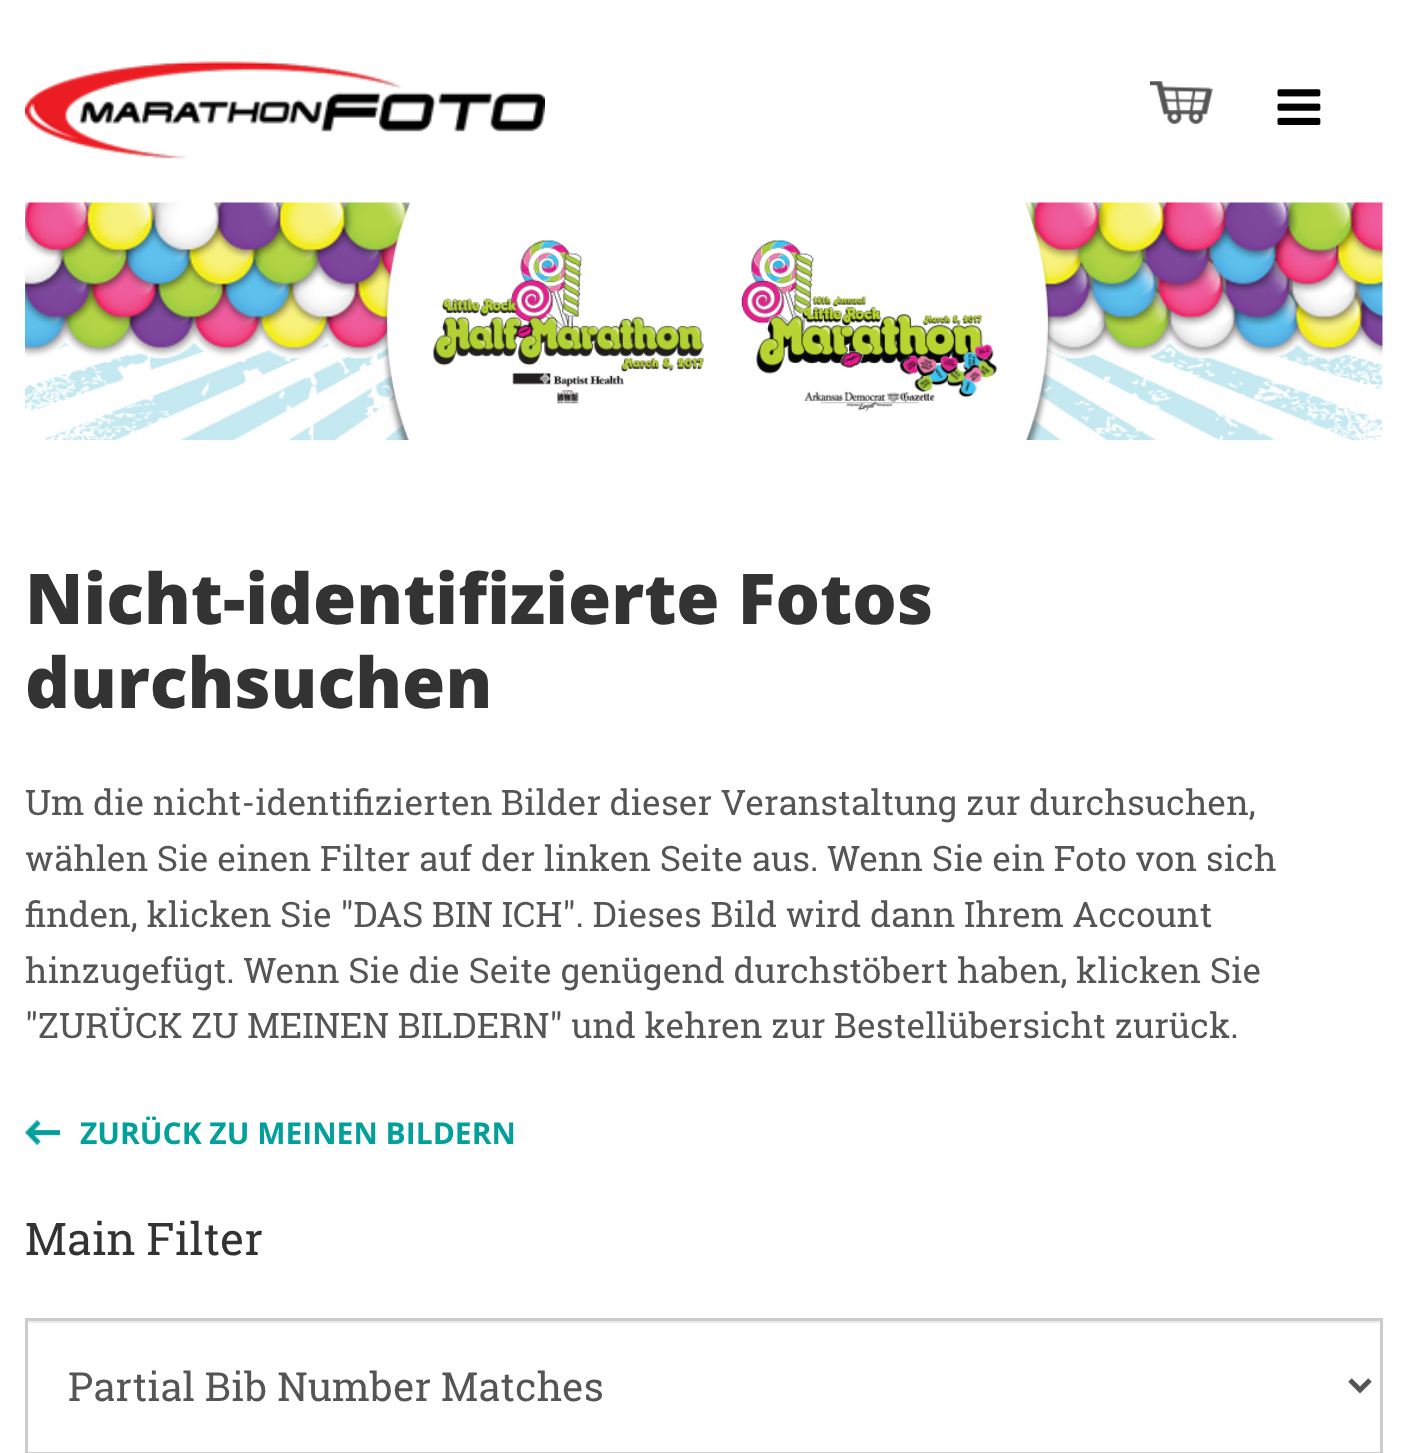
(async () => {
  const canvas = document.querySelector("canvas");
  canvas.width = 1407;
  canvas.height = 1453;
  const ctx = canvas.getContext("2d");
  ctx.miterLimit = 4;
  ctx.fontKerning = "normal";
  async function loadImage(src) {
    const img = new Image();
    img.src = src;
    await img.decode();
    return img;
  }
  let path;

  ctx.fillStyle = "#ffffff";
  ctx.fillRect(0, 0, 1407, 1453);
  ctx.drawImage(await loadImage("img/1.png"), 25, 61, 520, 99);
  ctx.drawImage(await loadImage("img/2.png"), 1150, 81, 63, 43);
  ctx.drawImage(await loadImage("img/3.png"), 1277, 89, 44, 36);
  ctx.drawImage(await loadImage("img/4.png"), 25, 202, 1358, 238);
  ctx.drawImage(await loadImage("img/5.png"), 25, 1120, 35, 25);
  ctx.fillStyle = "#ececec";
  ctx.fillRect(28, 1321, 1352, 2);
  ctx.strokeStyle = "#cccccc";
  ctx.lineWidth = 3;
  ctx.strokeRect(26.5, 1319.5, 1355, 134);
  path = new Path2D("M1350 1380L1360 1390L1370 1380");
  ctx.strokeStyle = "#555555";
  ctx.lineWidth = 5;
  ctx.stroke(path);
  ctx.font = "800 70px Open Sans";
  ctx.fillStyle = "#333333";
  ctx.fillText("Nicht-identifizierte Fotos", 25, 624);
  ctx.fillText("durchsuchen", 25, 708);
  ctx.font = "35px Roboto Slab";
  ctx.fillStyle = "#555555";
  for (const [text, x, y] of [
    ["Um die nicht-identifizierten Bilder dieser Veranstaltung zur durchsuchen,", 25, 815],
    ["wählen Sie einen Filter auf der linken Seite aus. Wenn Sie ein Foto von sich", 25, 871],
    ["finden, klicken Sie \"DAS BIN ICH\". Dieses Bild wird dann Ihrem Account", 25, 927],
    ["hinzugefügt. Wenn Sie die Seite genügend durchstöbert haben, klicken Sie", 25, 983],
    ["\"ZURÜCK ZU MEINEN BILDERN\" und kehren zur Bestellübersicht zurück.", 25, 1038],
  ]) {
    ctx.fillText(text, x, y);
  }
  ctx.font = "bold 30px Open Sans";
  ctx.fillStyle = "#02a09b";
  ctx.fillText("ZURÜCK ZU MEINEN BILDERN", 80, 1144);
  ctx.font = "45px Roboto Slab";
  ctx.fillStyle = "#333333";
  ctx.fillText("Main Filter", 25, 1255);
  ctx.font = "40px Roboto Slab";
  ctx.fillStyle = "#555555";
  ctx.fillText("Partial Bib Number Matches", 68, 1401);
})();
